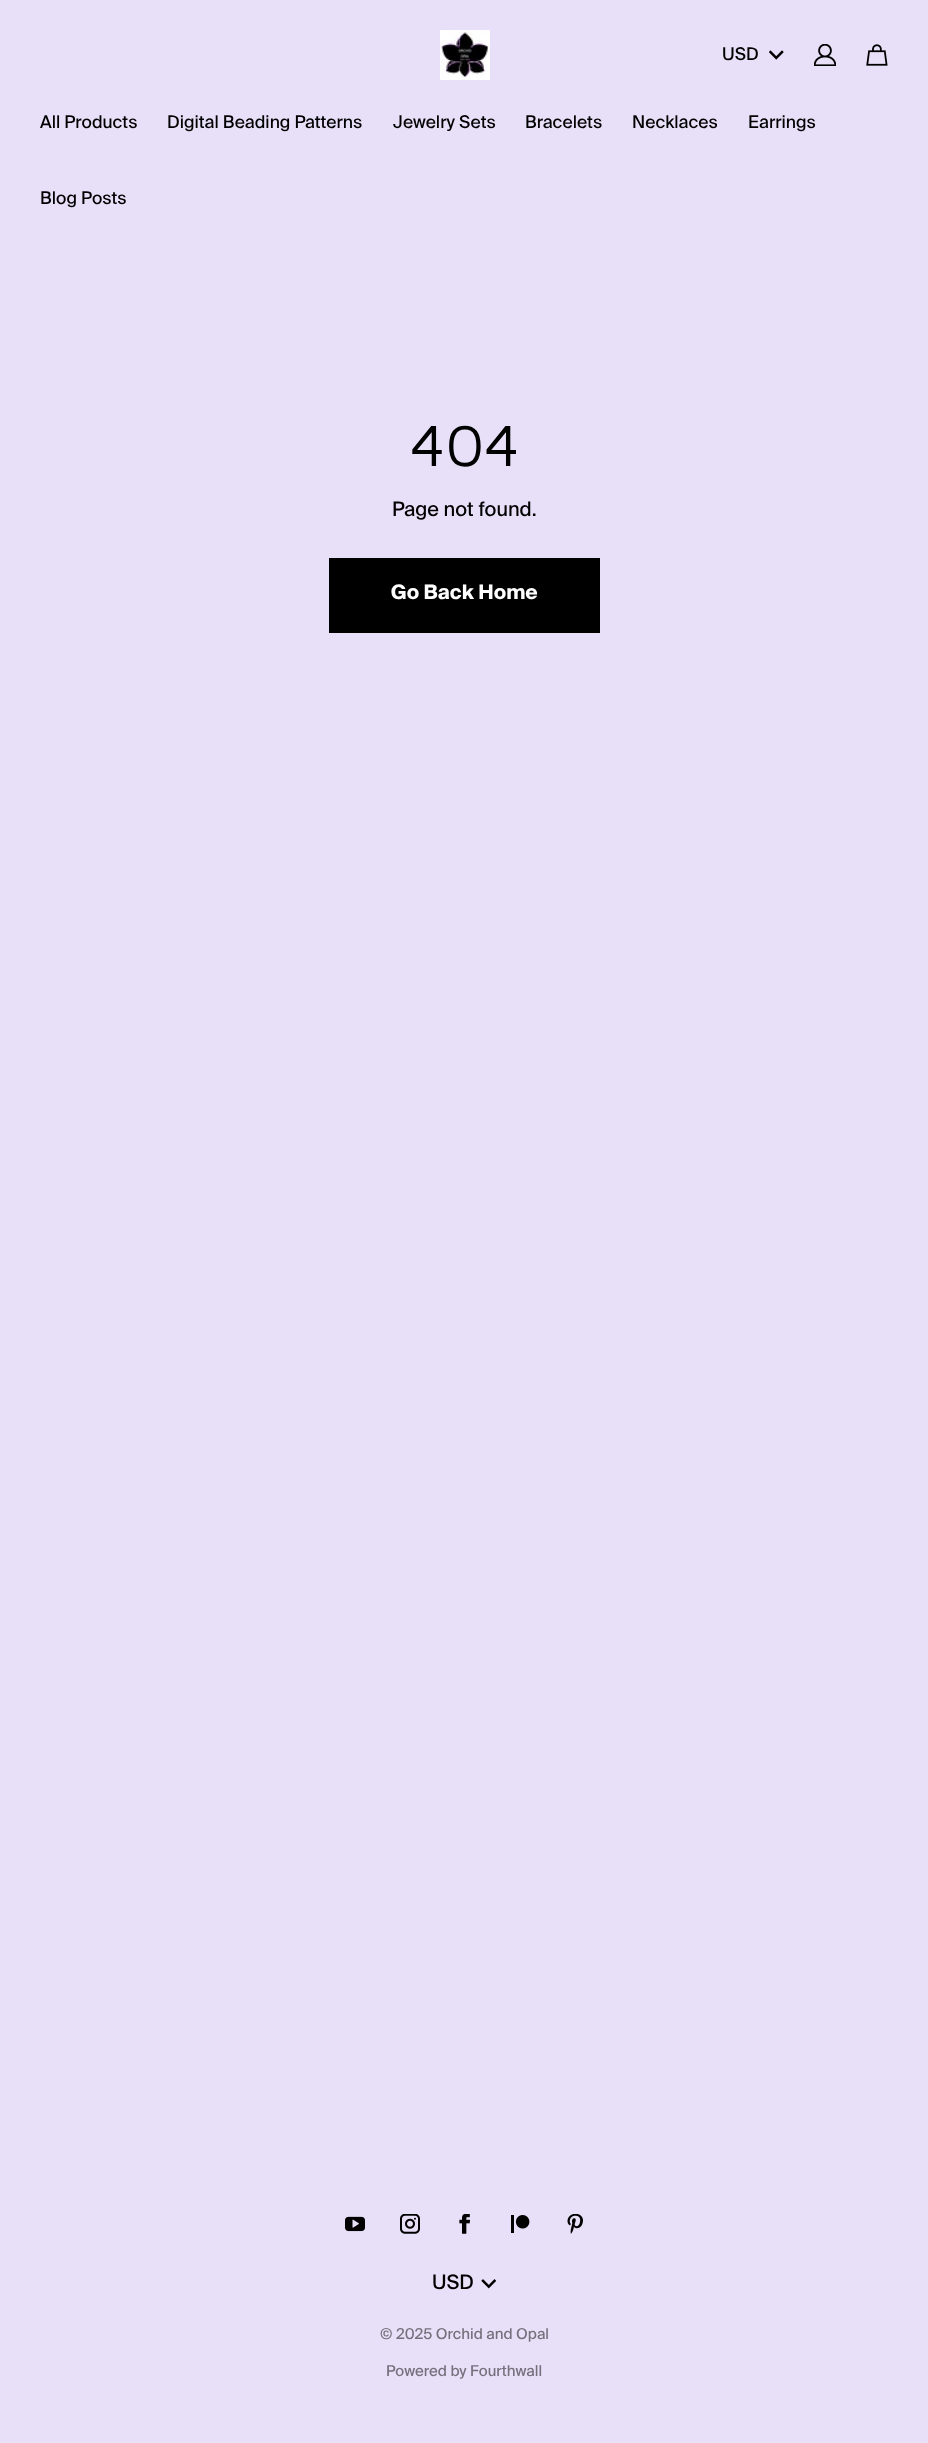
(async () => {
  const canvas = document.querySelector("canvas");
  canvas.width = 928;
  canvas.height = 2443;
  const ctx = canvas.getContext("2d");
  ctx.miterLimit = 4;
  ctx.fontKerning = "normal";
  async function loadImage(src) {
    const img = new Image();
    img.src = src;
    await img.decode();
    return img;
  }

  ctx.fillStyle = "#e8e0f8";
  ctx.fillRect(0, 0, 928, 2443);
  ctx.drawImage(await loadImage("img/1.png"), 440, 30, 50, 50);
  ctx.drawImage(await loadImage("img/2.png"), 769, 50, 15, 10);
  ctx.drawImage(await loadImage("img/3.png"), 814, 44, 22, 22);
  ctx.drawImage(await loadImage("img/4.png"), 866, 44, 22, 22);
  ctx.fillStyle = "#000000";
  ctx.fillRect(329, 558, 271, 75);
  ctx.drawImage(await loadImage("img/5.png"), 345, 2216, 20, 16);
  ctx.drawImage(await loadImage("img/6.png"), 400, 2214, 20, 20);
  ctx.drawImage(await loadImage("img/7.png"), 459, 2214, 11, 20);
  ctx.drawImage(await loadImage("img/8.png"), 511, 2215, 19, 18);
  ctx.drawImage(await loadImage("img/9.png"), 567, 2214, 16, 20);
  ctx.drawImage(await loadImage("img/10.png"), 481, 2279, 15, 10);
  ctx.font = "17.5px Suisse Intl";
  for (const [text, x, y] of [
    ["USD", 722, 60],
    ["All Products", 40, 128],
    ["Digital Beading Patterns", 167, 128],
    ["Jewelry Sets", 393, 128],
    ["Bracelets", 525, 128],
    ["Necklaces", 632, 128],
    ["Earrings", 748, 128],
    ["Blog Posts", 40, 204],
  ]) {
    ctx.fillText(text, x, y);
  }
  ctx.font = "60px Maven Pro";
  ctx.fillText("404", 410, 466);
  ctx.font = "20px Suisse Intl";
  ctx.fillText("Page not found.", 392, 516);
  ctx.font = "bold 20px Suisse Intl";
  ctx.fillStyle = "#ffffff";
  ctx.fillText("Go Back Home", 391, 599);
  ctx.font = "20px Suisse Intl";
  ctx.fillStyle = "#000000";
  ctx.fillText("USD", 432, 2289);
  ctx.font = "15px Suisse Intl";
  ctx.fillStyle = "#74707c";
  ctx.fillText("© 2025 Orchid and Opal", 380, 2339);
  ctx.fillText("Powered by Fourthwall", 386, 2376);
})();
